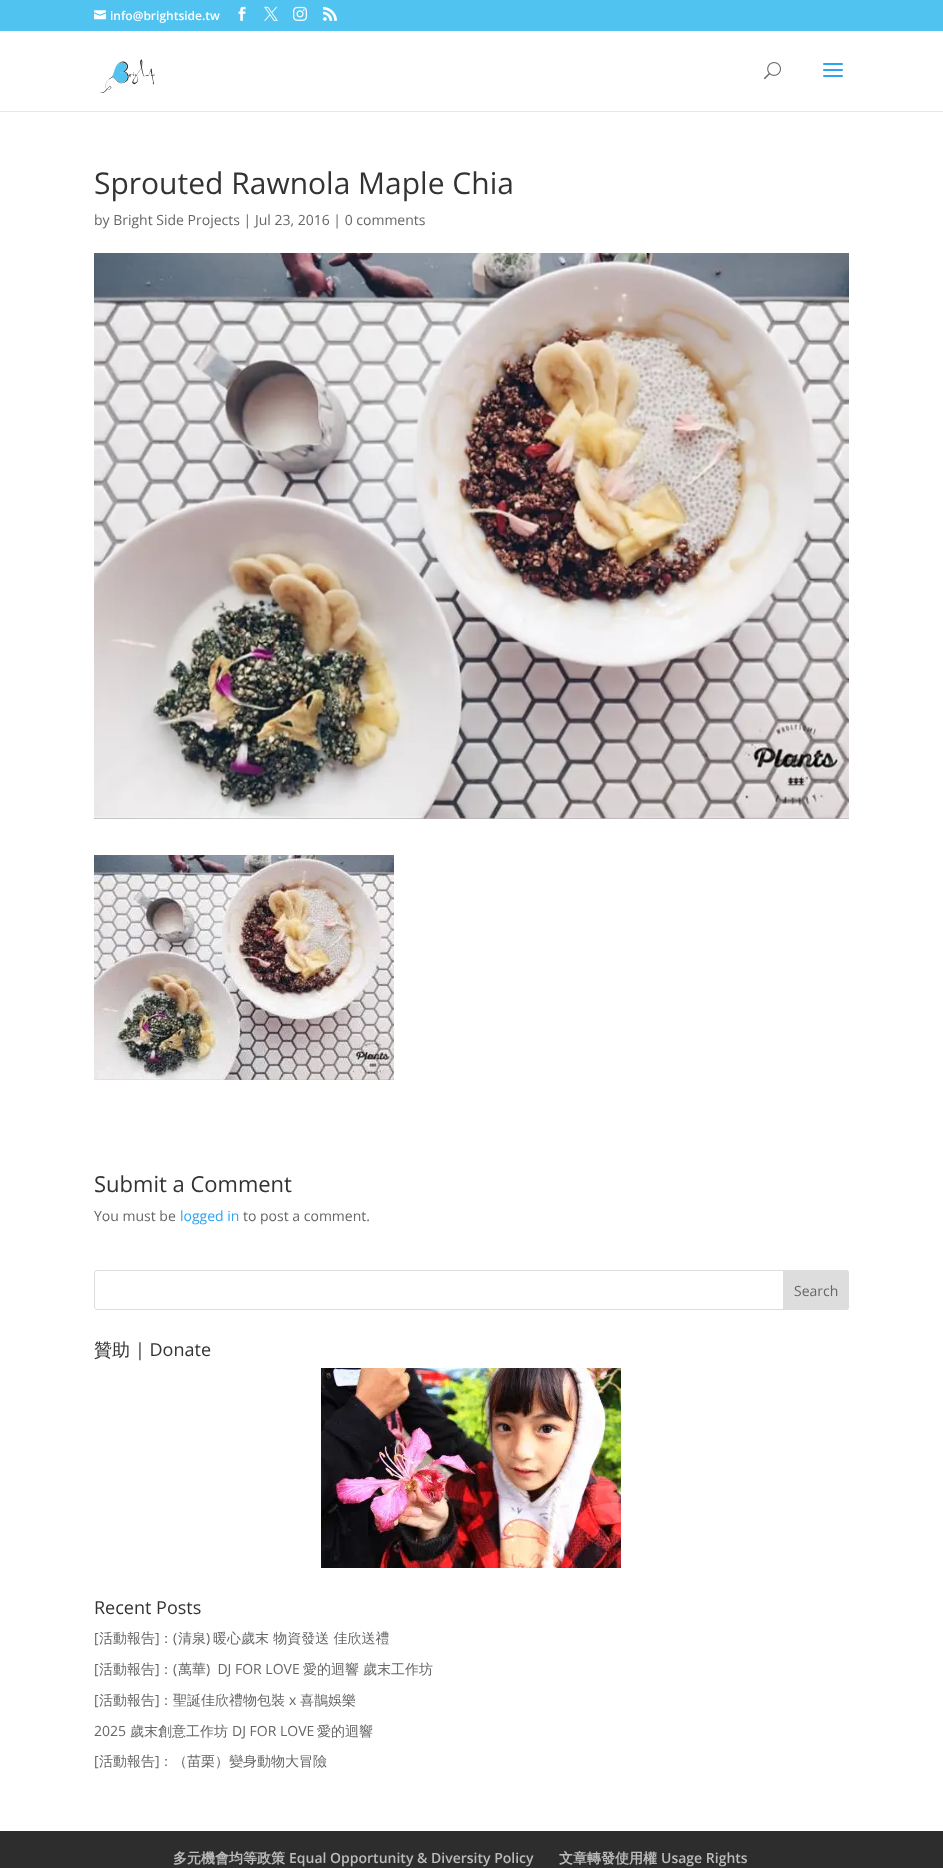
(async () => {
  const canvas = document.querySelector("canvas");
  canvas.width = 943;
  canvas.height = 1868;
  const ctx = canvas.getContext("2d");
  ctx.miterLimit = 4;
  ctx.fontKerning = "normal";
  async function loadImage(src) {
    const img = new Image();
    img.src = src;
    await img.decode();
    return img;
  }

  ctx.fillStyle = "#ffffff";
  ctx.fillRect(0, 0, 943, 1868);
  ctx.fillStyle = "#51c3f1";
  ctx.fillRect(0, 0, 943, 31);
  ctx.drawImage(await loadImage("img/1.png"), 94, 10, 12, 10);
  ctx.drawImage(await loadImage("img/2.png"), 238, 6, 8, 15);
  ctx.drawImage(await loadImage("img/3.png"), 264, 6, 14, 15);
  ctx.drawImage(await loadImage("img/4.png"), 293, 6, 14, 15);
  ctx.drawImage(await loadImage("img/5.png"), 323, 6, 14, 15);
  ctx.fillStyle = "#e6e6e6";
  ctx.fillRect(0, 111, 943, 1);
  ctx.drawImage(await loadImage("img/6.png"), 100, 59, 55, 34);
  ctx.drawImage(await loadImage("img/7.png"), 764, 62, 17, 18);
  ctx.drawImage(await loadImage("img/8.png"), 823, 63, 20, 14);
  ctx.drawImage(await loadImage("img/9.png"), 94, 253, 755, 566);
  ctx.drawImage(await loadImage("img/10.png"), 94, 855, 300, 225);
  ctx.beginPath();
  ctx.roundRect(94.5, 1270.5, 754, 39, 2.5);
  ctx.strokeStyle = "#dddddd";
  ctx.stroke();
  ctx.fillStyle = "#dddddd";
  ctx.beginPath();
  ctx.roundRect(783.5, 1270.5, 65, 39, [0, 2.5, 2.5, 0]);
  ctx.fill();
  ctx.stroke();
  ctx.drawImage(await loadImage("img/11.png"), 321, 1368, 300, 200);
  ctx.fillStyle = "#2d2d2d";
  ctx.fillRect(0, 1831, 943, 37);
  ctx.font = "600 12px Open Sans";
  ctx.fillStyle = "#ffffff";
  ctx.fillText("info@brightside.tw", 110, 20);
  ctx.font = "30px Open Sans";
  ctx.fillStyle = "#333333";
  ctx.fillText("Sprouted Rawnola Maple Chia", 94, 194);
  ctx.font = "14px Open Sans";
  ctx.fillStyle = "#666666";
  ctx.fillText("by Bright Side Projects | Jul 23, 2016 | 0 comments", 94, 225);
  ctx.font = "22px Open Sans";
  ctx.fillStyle = "#333333";
  ctx.fillText("Submit a Comment", 94, 1192);
  ctx.font = "14px Open Sans";
  ctx.fillStyle = "#666666";
  ctx.fillText("You must be", 94, 1221);
  ctx.fillStyle = "#2ea3f2";
  ctx.fillText("logged in", 180, 1221);
  ctx.fillStyle = "#666666";
  ctx.fillText("to post a comment.", 243, 1221);
  ctx.fillText("Search", 794, 1296);
  ctx.font = "500 18px WenQuanYi Zen Hei";
  ctx.fillStyle = "#333333";
  ctx.fillText("贊助", 94, 1356);
  ctx.font = "18px Open Sans";
  ctx.fillText("| Donate", 135, 1356);
  ctx.fillText("Recent Posts", 94, 1614);
  ctx.font = "14px Open Sans";
  ctx.fillStyle = "#666666";
  ctx.fillText("[", 94, 1643);
  ctx.font = "500 14px WenQuanYi Zen Hei";
  ctx.fillText("活動報告", 99, 1643);
  ctx.font = "14px Open Sans";
  ctx.fillText("]", 155, 1643);
  ctx.font = "500 14px WenQuanYi Zen Hei";
  ctx.fillText("：", 159, 1643);
  ctx.font = "14px Open Sans";
  ctx.fillText("(", 173, 1643);
  ctx.font = "500 14px WenQuanYi Zen Hei";
  ctx.fillText("清泉", 178, 1643);
  ctx.font = "14px Open Sans";
  ctx.fillText(")", 206, 1643);
  ctx.font = "500 14px WenQuanYi Zen Hei";
  ctx.fillText("暖心歲末 物資發送 佳欣送禮", 213, 1643);
  ctx.font = "14px Open Sans";
  ctx.fillText("[", 94, 1674);
  ctx.font = "500 14px WenQuanYi Zen Hei";
  ctx.fillText("活動報告", 99, 1674);
  ctx.font = "14px Open Sans";
  ctx.fillText("]", 155, 1674);
  ctx.font = "500 14px WenQuanYi Zen Hei";
  ctx.fillText("：", 159, 1674);
  ctx.font = "14px Open Sans";
  ctx.fillText("(", 173, 1674);
  ctx.font = "500 14px WenQuanYi Zen Hei";
  ctx.fillText("萬華", 178, 1674);
  ctx.font = "14px Open Sans";
  ctx.fillText(")  DJ FOR LOVE", 206, 1674);
  ctx.font = "500 14px WenQuanYi Zen Hei";
  ctx.fillText("愛的迴響", 303, 1674);
  ctx.fillText("歲末工作坊", 363, 1674);
  ctx.font = "14px Open Sans";
  ctx.fillText("[", 94, 1705);
  ctx.font = "500 14px WenQuanYi Zen Hei";
  ctx.fillText("活動報告", 99, 1705);
  ctx.font = "14px Open Sans";
  ctx.fillText("]", 155, 1705);
  ctx.font = "500 14px WenQuanYi Zen Hei";
  ctx.fillText("：聖誕佳欣禮物包裝", 159, 1705);
  ctx.font = "14px Open Sans";
  ctx.fillText("x", 289, 1705);
  ctx.font = "500 14px WenQuanYi Zen Hei";
  ctx.fillText("喜鵲娛樂", 300, 1705);
  ctx.font = "14px Open Sans";
  ctx.fillText("2025", 94, 1736);
  ctx.font = "500 14px WenQuanYi Zen Hei";
  ctx.fillText("歲末創意工作坊", 130, 1736);
  ctx.font = "14px Open Sans";
  ctx.fillText("DJ FOR LOVE", 232, 1736);
  ctx.font = "500 14px WenQuanYi Zen Hei";
  ctx.fillText("愛的迴響", 317, 1736);
  ctx.font = "14px Open Sans";
  ctx.fillText("[", 94, 1766);
  ctx.font = "500 14px WenQuanYi Zen Hei";
  ctx.fillText("活動報告", 99, 1766);
  ctx.font = "14px Open Sans";
  ctx.fillText("]", 155, 1766);
  ctx.font = "500 14px WenQuanYi Zen Hei";
  ctx.fillText("：（苗栗）變身動物大冒險", 159, 1766);
  ctx.font = "bold 14px WenQuanYi Zen Hei";
  ctx.fillStyle = "#bbbbbb";
  ctx.fillText("多元機會均等政策", 173, 1863);
  ctx.font = "600 14px Open Sans";
  ctx.fillText("Equal Opportunity & Diversity Policy", 289, 1863);
  ctx.font = "bold 14px WenQuanYi Zen Hei";
  ctx.fillText("文章轉發使用權", 559, 1863);
  ctx.font = "600 14px Open Sans";
  ctx.fillText("Usage Rights", 661, 1863);
})();
